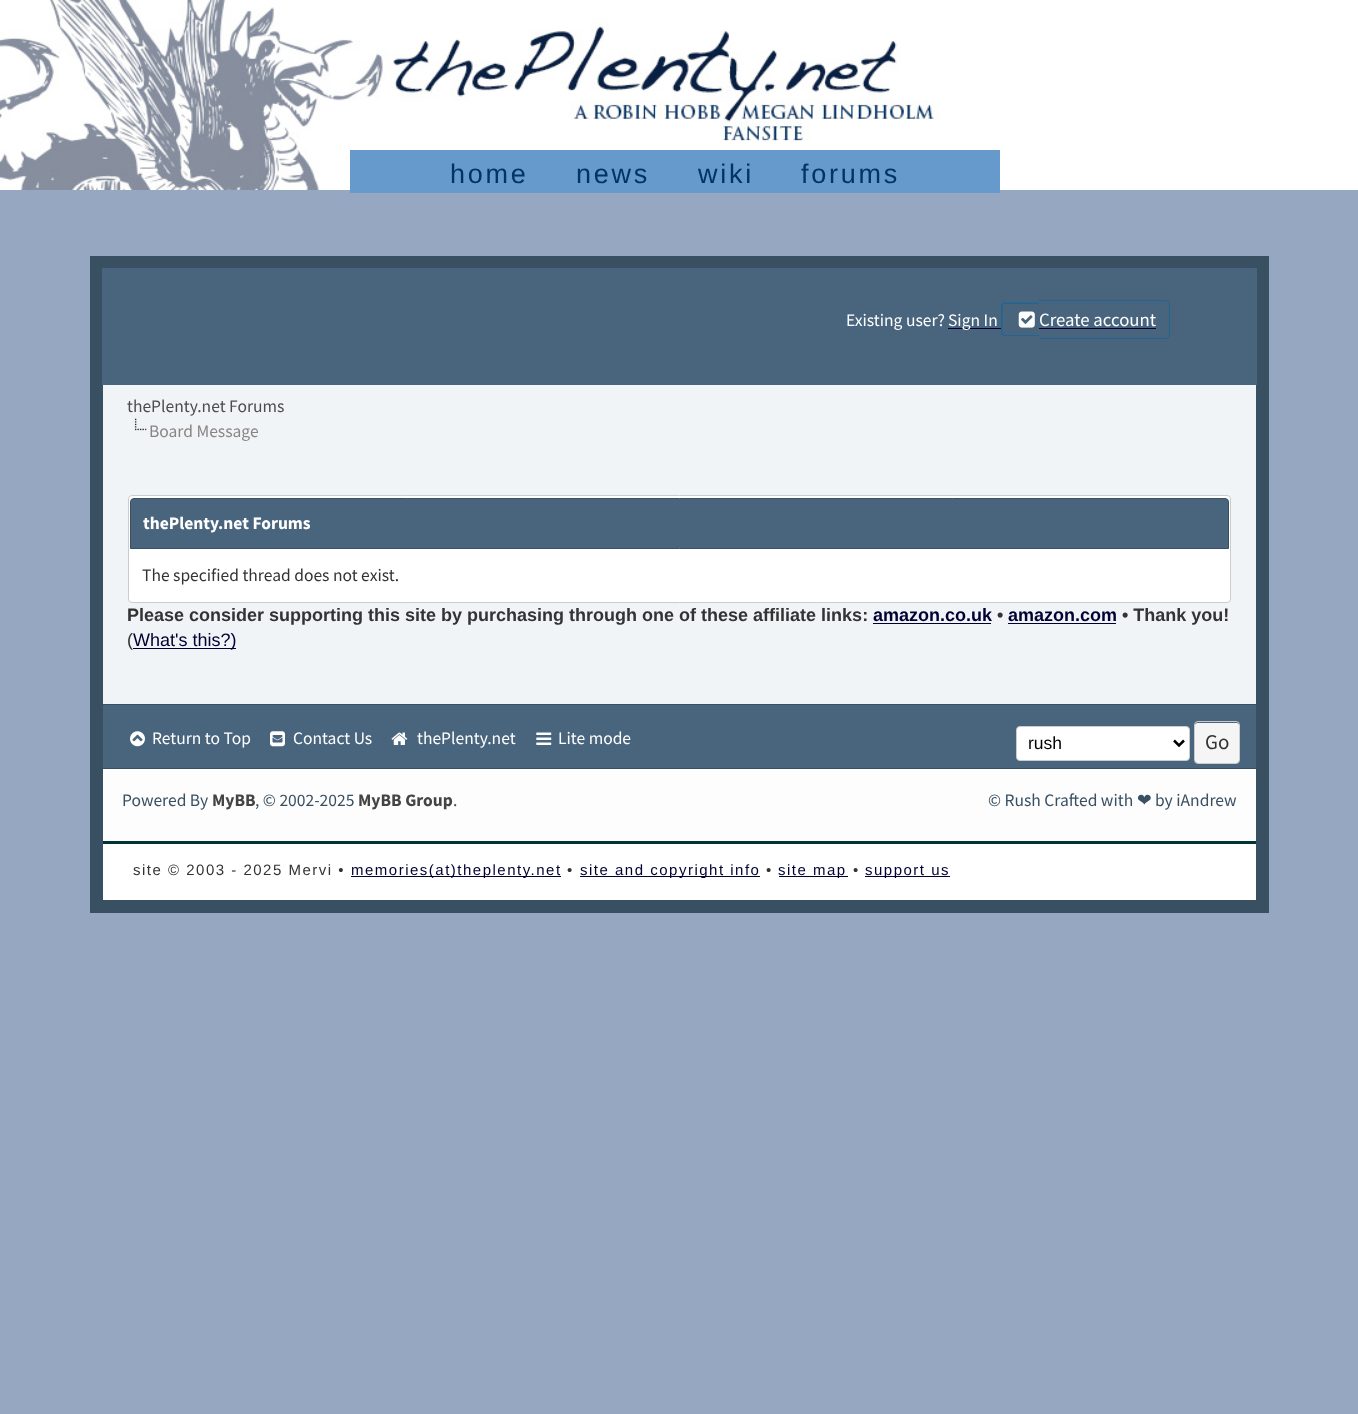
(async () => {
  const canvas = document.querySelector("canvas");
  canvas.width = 1358;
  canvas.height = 1414;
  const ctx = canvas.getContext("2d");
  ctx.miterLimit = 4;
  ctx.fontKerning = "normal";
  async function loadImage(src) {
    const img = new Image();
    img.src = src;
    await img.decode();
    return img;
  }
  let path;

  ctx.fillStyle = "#96a7c1";
  ctx.fillRect(0, 0, 1358, 1414);
  ctx.fillStyle = "#ffffff";
  ctx.fillRect(940, 0, 418, 190);
  ctx.drawImage(await loadImage("img/1.png"), 0, 0, 940, 190);
  ctx.fillStyle = "#6699cc";
  ctx.fillRect(350, 150, 650, 43);
  ctx.fillStyle = "#fdfdfd";
  ctx.fillRect(103, 769, 1153, 72);
  ctx.strokeStyle = "#395063";
  ctx.lineWidth = 13;
  ctx.strokeRect(96.5, 262.5, 1166, 644);
  for (const [x, y, w, h, color] of [
    [103, 385, 1153, 319, "#f1f4f6"],
    [102, 268, 1155, 117, "#49657d"],
    [948, 328, 53, 1, "#000033"],
  ]) {
    ctx.fillStyle = color;
    ctx.fillRect(x, y, w, h);
  }
  ctx.fillStyle = "#1f6696";
  path = new Path2D("M1005 302.5H1039V336H1005C1003 336 1001 334.5 1001 332.5V306C1001 304 1003 302.5 1005 302.5ZM1005 304H1039V335H1005C1003.5 335 1002.5 334 1002.5 332.5V306C1002.5 305 1003.5 304 1005 304Z");
  ctx.fill(path, "evenodd");
  path = new Path2D("M1039 300H1166C1168 300 1170 302 1170 304V335C1170 337 1168 339 1166 339H1039ZM1039 301H1166C1168 301 1169 302 1169 304V335C1169 336 1168 338 1166 338H1039Z");
  ctx.fill(path, "evenodd");
  ctx.drawImage(await loadImage("img/2.png"), 1018, 311, 17, 17);
  ctx.fillStyle = "#000033";
  ctx.fillRect(1039, 328, 117, 1);
  ctx.drawImage(await loadImage("img/3.png"), 134, 418, 13, 13);
  ctx.fillStyle = "#ffffff";
  ctx.beginPath();
  ctx.roundRect(128.5, 495.5, 1102, 107, 3.5);
  ctx.fill();
  ctx.strokeStyle = "#cccccc";
  ctx.lineWidth = 1;
  ctx.stroke();
  ctx.fillStyle = "#49657d";
  ctx.beginPath();
  ctx.roundRect(130.5, 498.5, 1098, 50, [3.5, 3.5, 0, 0]);
  ctx.fill();
  ctx.strokeStyle = "#395063";
  ctx.stroke();
  for (const [x, y, w, h, color] of [
    [873, 623, 118, 1, "#000033"],
    [1008, 623, 108, 1, "#000033"],
    [133, 648, 103, 1, "#000033"],
    [103, 705, 1153, 63, "#49657d"],
    [103, 704, 1153, 1, "#395063"],
    [103, 768, 1153, 1, "#395063"],
  ]) {
    ctx.fillStyle = color;
    ctx.fillRect(x, y, w, h);
  }
  ctx.drawImage(await loadImage("img/4.png"), 130, 731, 15, 16);
  ctx.drawImage(await loadImage("img/5.png"), 270, 731, 15, 16);
  ctx.drawImage(await loadImage("img/6.png"), 391, 732, 17, 13);
  ctx.drawImage(await loadImage("img/7.png"), 536, 732, 16, 13);
  ctx.fillStyle = "#ffffff";
  ctx.beginPath();
  ctx.roundRect(1016.5, 726.5, 173, 34, 3.5);
  ctx.fill();
  ctx.strokeStyle = "#cccccc";
  ctx.stroke();
  path = new Path2D("M1174 740.5L1179 745.5L1184 740.5");
  ctx.strokeStyle = "#000000";
  ctx.lineWidth = 2.5;
  ctx.stroke(path);
  ctx.fillStyle = "#f5f5f5";
  ctx.beginPath();
  ctx.roundRect(1195, 723, 44, 40, 2.5);
  ctx.fill();
  ctx.beginPath();
  ctx.roundRect(1194.5, 721.5, 45, 42, 3.5);
  ctx.strokeStyle = "#cccccc";
  ctx.lineWidth = 1;
  ctx.stroke();
  for (const [x, y, w, h, color] of [
    [103, 844, 1153, 56, "#ffffff"],
    [103, 841, 1153, 3, "#003333"],
    [351, 876, 210, 1, "#000033"],
    [580, 876, 180, 1, "#000033"],
    [779, 876, 69, 1, "#000033"],
    [865, 876, 85, 1, "#000033"],
  ]) {
    ctx.fillStyle = color;
    ctx.fillRect(x, y, w, h);
  }
  ctx.letterSpacing = "2.75px";
  ctx.font = "27px Liberation Sans";
  ctx.fillStyle = "#003366";
  for (const [text, x, y] of [
    ["home", 450, 183],
    ["news", 576, 183],
    ["wiki", 698, 183],
    ["forums", 801, 183],
  ]) {
    ctx.fillText(text, x, y);
  }
  ctx.letterSpacing = "0px";
  ctx.font = "17.5px Source Sans Pro";
  ctx.fillStyle = "#ffffff";
  ctx.fillText("Existing user?", 846, 326);
  ctx.fillText("Sign In", 948, 326);
  ctx.font = "18.75px Source Sans Pro";
  ctx.fillText("Create account", 1039, 326);
  ctx.font = "17.5px Source Sans Pro";
  ctx.fillStyle = "#4d4b4b";
  ctx.fillText("thePlenty.net Forums", 127, 412);
  ctx.fillStyle = "#898585";
  ctx.fillText("Board Message", 149, 437);
  ctx.font = "bold 17.5px Source Sans Pro";
  ctx.fillStyle = "#ffffff";
  ctx.fillText("thePlenty.net Forums", 143, 529);
  ctx.font = "17.5px Source Sans Pro";
  ctx.fillStyle = "#333333";
  ctx.fillText("The specified thread does not exist.", 142, 581);
  ctx.font = "bold 18px Liberation Sans";
  ctx.fillText("Please consider supporting this site by purchasing through one of these affiliate links:", 127, 621);
  ctx.fillStyle = "#000033";
  ctx.fillText("amazon.co.uk", 873, 621);
  ctx.fillStyle = "#333333";
  ctx.fillText("•", 997, 621);
  ctx.fillStyle = "#000033";
  ctx.fillText("amazon.com", 1008, 621);
  ctx.fillStyle = "#333333";
  ctx.fillText("• Thank you!", 1122, 621);
  ctx.font = "18px Liberation Sans";
  ctx.fillText("(", 127, 646);
  ctx.fillStyle = "#000033";
  ctx.fillText("What's this?)", 133, 646);
  ctx.font = "17.5px Source Sans Pro";
  ctx.fillStyle = "#ffffff";
  for (const [text, x, y] of [
    ["Return to Top", 152, 744],
    ["Contact Us", 293, 744],
    ["thePlenty.net", 417, 744],
    ["Lite mode", 558, 744],
  ]) {
    ctx.fillText(text, x, y);
  }
  ctx.font = "17.5px Liberation Sans";
  ctx.fillStyle = "#000000";
  ctx.fillText("rush", 1028, 749);
  ctx.font = "21px Source Sans Pro";
  ctx.fillStyle = "#333333";
  ctx.fillText("Go", 1205, 749);
  ctx.font = "17.5px Source Sans Pro";
  ctx.fillStyle = "#395063";
  ctx.fillText("Powered By", 122, 806);
  ctx.font = "bold 17.5px Source Sans Pro";
  ctx.fillStyle = "#444444";
  ctx.fillText("MyBB", 212, 806);
  ctx.font = "17.5px Source Sans Pro";
  ctx.fillStyle = "#395063";
  ctx.fillText(", © 2002-2025", 255, 806);
  ctx.font = "bold 17.5px Source Sans Pro";
  ctx.fillStyle = "#444444";
  ctx.fillText("MyBB Group", 358, 806);
  ctx.font = "17.5px Source Sans Pro";
  ctx.fillStyle = "#395063";
  ctx.fillText(".", 453, 806);
  ctx.fillText("© Rush Crafted with", 988, 806);
  ctx.font = "17.5px DejaVu Sans";
  ctx.fillText("❤", 1137, 806);
  ctx.font = "17.5px Source Sans Pro";
  ctx.fillText("by iAndrew", 1155, 806);
  ctx.letterSpacing = "1.5px";
  ctx.font = "15px Liberation Sans";
  ctx.fillStyle = "#333333";
  ctx.fillText("site © 2003 - 2025 Mervi •", 133, 875);
  ctx.fillStyle = "#000033";
  ctx.fillText("memories(at)theplenty.net", 351, 875);
  ctx.fillStyle = "#333333";
  ctx.fillText("•", 567, 875);
  ctx.fillStyle = "#000033";
  ctx.fillText("site and copyright info", 580, 875);
  ctx.fillStyle = "#333333";
  ctx.fillText("•", 766, 875);
  ctx.fillStyle = "#000033";
  ctx.fillText("site map", 778, 875);
  ctx.fillStyle = "#333333";
  ctx.fillText("•", 853, 875);
  ctx.fillStyle = "#000033";
  ctx.fillText("support us", 865, 875);
})();
